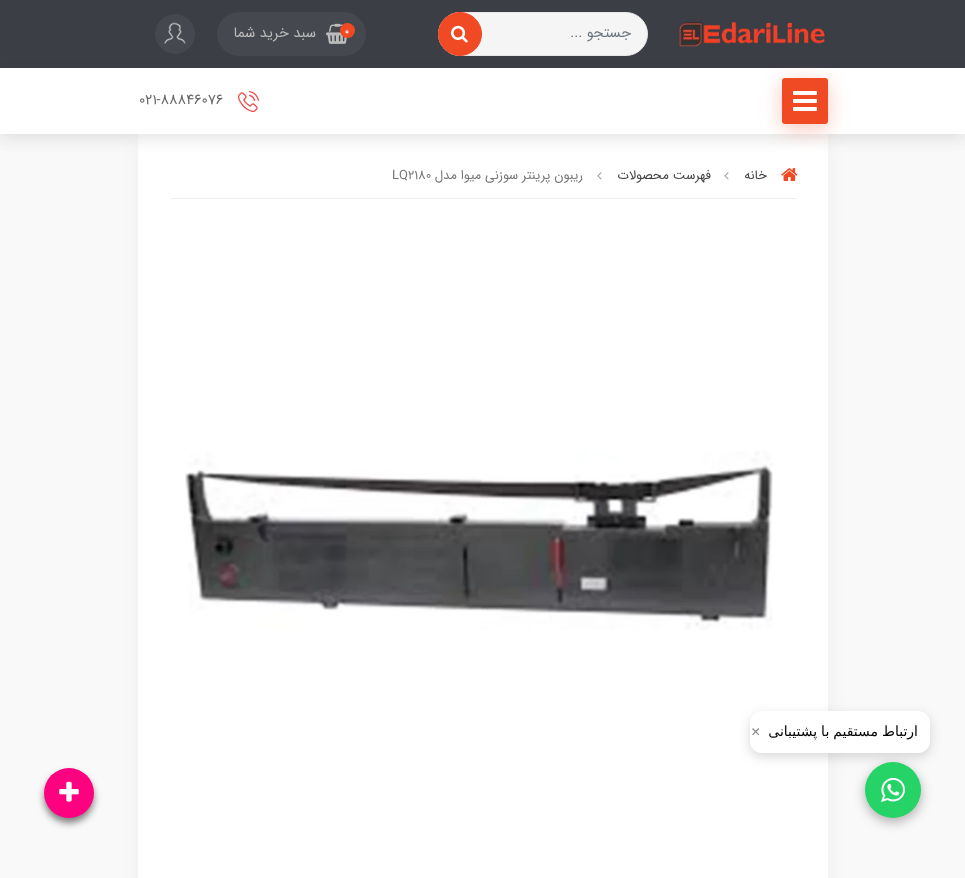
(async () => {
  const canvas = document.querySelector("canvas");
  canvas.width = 965;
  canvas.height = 878;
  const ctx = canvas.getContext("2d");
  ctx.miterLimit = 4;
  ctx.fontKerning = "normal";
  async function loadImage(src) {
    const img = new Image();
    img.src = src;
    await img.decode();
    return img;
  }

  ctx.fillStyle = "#f9f9f9";
  ctx.fillRect(0, 0, 965, 878);
  ctx.fillStyle = "rgba(0, 0, 0, 0.05)";
  ctx.filter = "blur(10px)";
  ctx.beginPath();
  ctx.rect(138, 149, 690, 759);
  ctx.fill();
  ctx.filter = "none";
  ctx.fillStyle = "#ffffff";
  ctx.fillRect(138, 134, 690, 744);
  ctx.fillStyle = "rgba(0, 0, 0, 0.05)";
  ctx.filter = "blur(7.5px)";
  ctx.beginPath();
  ctx.rect(0, 5, 965, 134);
  ctx.fill();
  ctx.filter = "none";
  ctx.fillStyle = "#3c3e46";
  ctx.fillRect(0, 0, 965, 68);
  ctx.drawImage(await loadImage("img/1.png"), 679, 21, 147, 26);
  ctx.fillStyle = "rgba(0, 0, 0, 0.05)";
  ctx.filter = "blur(7.5px)";
  ctx.beginPath();
  ctx.rect(0, 73, 965, 66);
  ctx.fill();
  ctx.filter = "none";
  ctx.fillStyle = "#f5f5f5";
  ctx.beginPath();
  ctx.roundRect(438.5, 12.5, 209, 43, 21.5);
  ctx.fill();
  ctx.strokeStyle = "#e7e7e7";
  ctx.stroke();
  ctx.fillStyle = "#ef4a23";
  ctx.beginPath();
  ctx.arc(460, 34, 21.5, 0, Math.PI * 2);
  ctx.fill();
  ctx.strokeStyle = "#ef4a23";
  ctx.stroke();
  ctx.drawImage(await loadImage("img/2.png"), 451, 25, 17, 18);
  ctx.fillStyle = "#46484f";
  ctx.beginPath();
  ctx.roundRect(217, 12, 149, 44, 22);
  ctx.fill();
  ctx.drawImage(await loadImage("img/3.png"), 326, 23, 21, 21);
  ctx.fillStyle = "#ef4a23";
  ctx.beginPath();
  ctx.arc(347.5, 30.5, 7.5, 0, Math.PI * 2);
  ctx.fill();
  ctx.drawImage(await loadImage("img/4.png"), 155, 14, 40, 40);
  ctx.fillStyle = "#ffffff";
  ctx.fillRect(0, 68, 965, 66);
  ctx.fillStyle = "rgba(239, 74, 35, 0.3)";
  ctx.filter = "blur(10px)";
  ctx.beginPath();
  ctx.roundRect(782, 83, 46, 46, 3);
  ctx.fill();
  ctx.filter = "none";
  ctx.fillStyle = "#ef4a23";
  ctx.beginPath();
  ctx.roundRect(782, 78, 46, 46, 3);
  ctx.fill();
  ctx.drawImage(await loadImage("img/5.png"), 793, 91, 24, 20);
  ctx.drawImage(await loadImage("img/6.png"), 238, 91, 21, 21);
  ctx.fillStyle = "#eeeeee";
  ctx.fillRect(171, 198, 625, 1);
  ctx.drawImage(await loadImage("img/7.png"), 781, 168, 17, 13);
  ctx.drawImage(await loadImage("img/8.png"), 724, 172, 5, 8);
  ctx.drawImage(await loadImage("img/8.png"), 597, 172, 5, 8);
  ctx.drawImage(await loadImage("img/9.png"), 185, 451, 588, 179);
  ctx.fillStyle = "rgba(0, 0, 0, 0.15)";
  ctx.filter = "blur(6px)";
  ctx.beginPath();
  ctx.roundRect(750, 715, 180, 42, 12);
  ctx.fill();
  ctx.filter = "none";
  ctx.fillStyle = "#ffffff";
  ctx.beginPath();
  ctx.roundRect(750, 711, 180, 42, 12);
  ctx.fill();
  ctx.fillStyle = "rgba(0, 0, 0, 0.3)";
  ctx.filter = "blur(6px)";
  ctx.beginPath();
  ctx.roundRect(865, 766, 56, 56, 28);
  ctx.fill();
  ctx.filter = "none";
  ctx.fillStyle = "#25d366";
  ctx.beginPath();
  ctx.arc(893, 790, 28, 0, Math.PI * 2);
  ctx.fill();
  ctx.drawImage(await loadImage("img/10.png"), 881, 777, 24, 25);
  ctx.fillStyle = "#808080";
  ctx.filter = "blur(3.5px)";
  ctx.beginPath();
  ctx.roundRect(44, 773, 50, 50, 25);
  ctx.fill();
  ctx.filter = "none";
  ctx.fillStyle = "#ff0080";
  ctx.beginPath();
  ctx.arc(69, 793, 25, 0, Math.PI * 2);
  ctx.fill();
  ctx.drawImage(await loadImage("img/11.png"), 59, 781, 20, 21);
  ctx.direction = "rtl";
  ctx.font = "14.5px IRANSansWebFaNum";
  ctx.fillStyle = "#6c757d";
  ctx.fillText("جستجو ...", 631, 37);
  ctx.fillStyle = "#bbbbbb";
  ctx.fillText("سبد خرید شما", 316, 37);
  ctx.direction = "ltr";
  ctx.font = "bold 9px IRANSansWebFaNum";
  ctx.fillStyle = "#ffffff";
  ctx.fillText("0", 345, 34);
  ctx.font = "14.5px IRANSansWebFaNum";
  ctx.fillStyle = "#666666";
  ctx.fillText("021-88846076", 139, 104);
  ctx.direction = "rtl";
  ctx.font = "13px IRANSansWebFaNum";
  ctx.fillStyle = "#444444";
  ctx.fillText("خانه", 767, 179);
  ctx.fillText("فهرست محصولات", 711, 179);
  ctx.fillStyle = "#777777";
  ctx.fillText("ریبون پرینتر سوزنی میوا مدل", 583, 179);
  ctx.direction = "ltr";
  ctx.fillText("LQ2180", 392, 179);
  ctx.wordSpacing = "-0.5px";
  ctx.direction = "rtl";
  ctx.font = "14px DejaVu Sans";
  ctx.fillStyle = "#000000";
  ctx.fillText("ارتباط مستقیم با پشتیبانی", 918, 736);
  ctx.wordSpacing = "0px";
  ctx.direction = "ltr";
  ctx.font = "16px Liberation Sans";
  ctx.fillStyle = "#888888";
  ctx.fillText("×", 751, 737);
})();
